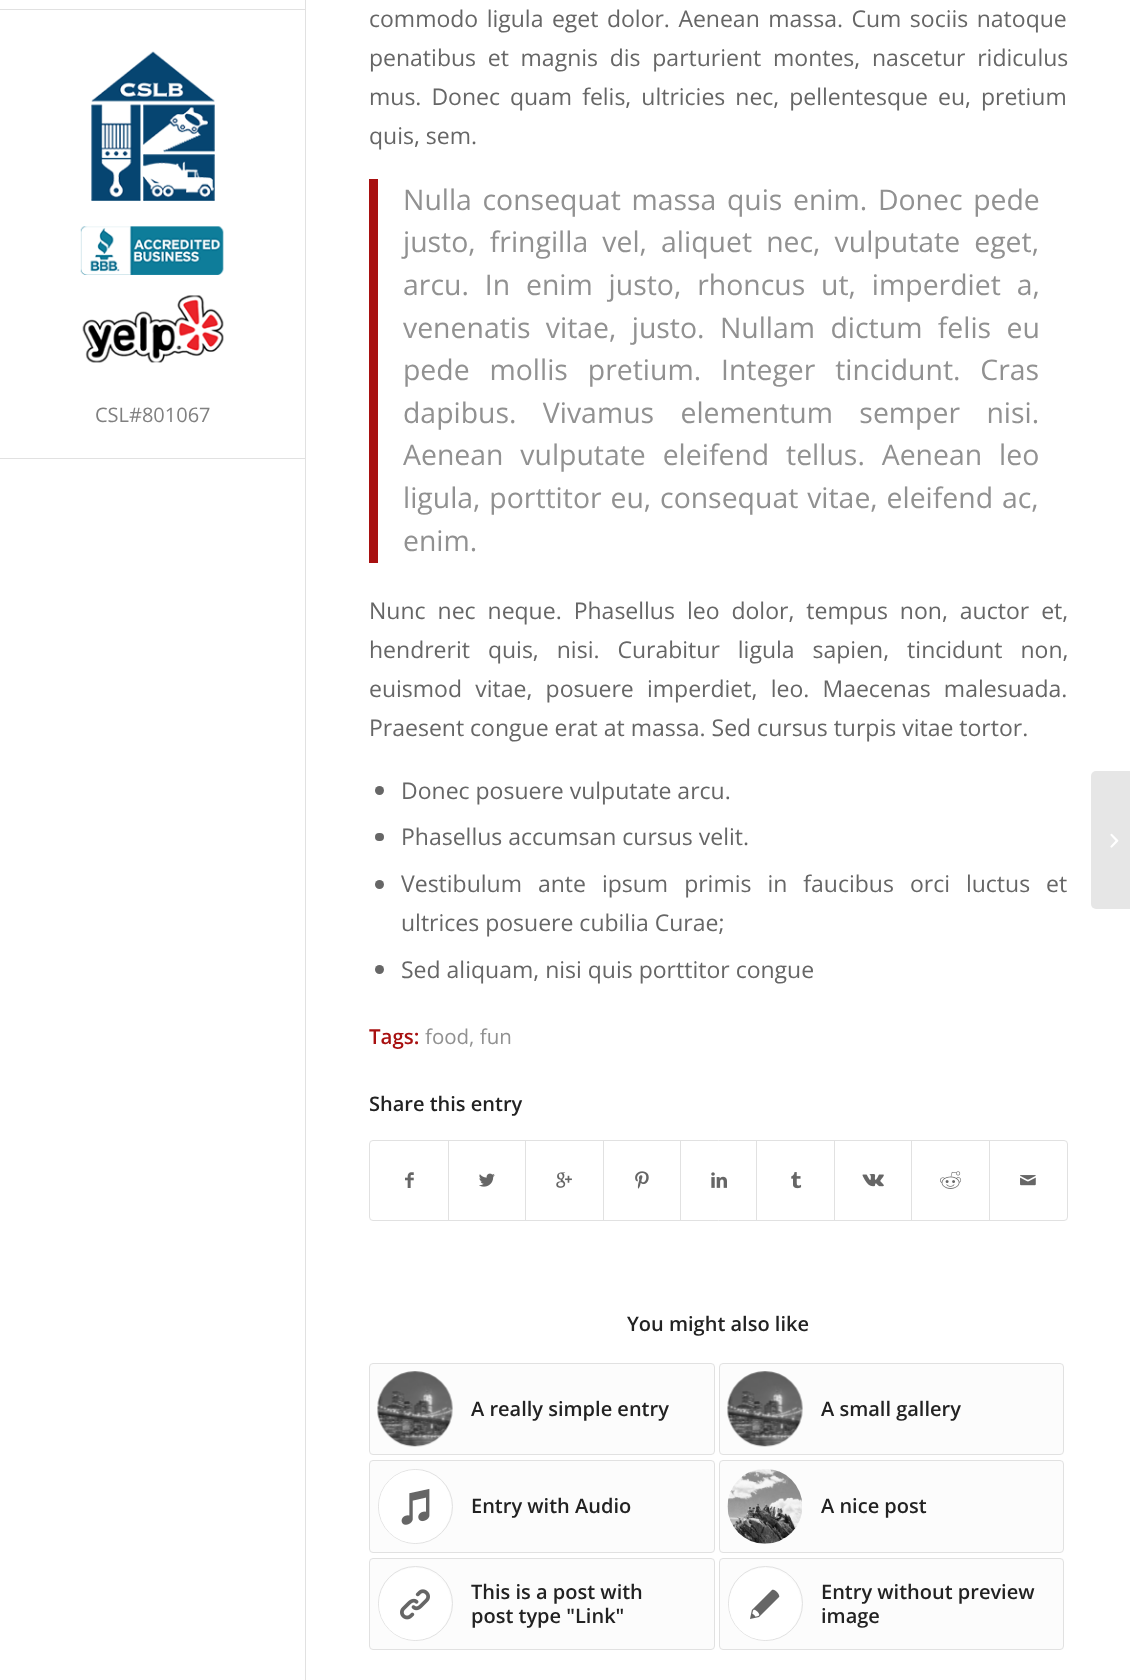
(async () => {
  const canvas = document.querySelector("canvas");
  canvas.width = 1130;
  canvas.height = 1680;
  const ctx = canvas.getContext("2d");
  ctx.miterLimit = 4;
  ctx.fontKerning = "normal";
  async function loadImage(src) {
    const img = new Image();
    img.src = src;
    await img.decode();
    return img;
  }

  ctx.fillStyle = "#ffffff";
  ctx.fillRect(0, 0, 1130, 1680);
  ctx.fillStyle = "#e1e1e1";
  ctx.fillRect(0, 458, 305, 1);
  ctx.fillRect(0, 9, 305, 1);
  ctx.drawImage(await loadImage("img/1.png"), 91, 51, 124, 150);
  ctx.drawImage(await loadImage("img/2.png"), 80, 226, 144, 49);
  ctx.drawImage(await loadImage("img/3.png"), 82, 295, 142, 68);
  ctx.fillRect(305, 0, 1, 1680);
  ctx.fillStyle = "#a81010";
  ctx.fillRect(369, 179, 9, 384);
  ctx.fillStyle = "#666666";
  ctx.beginPath();
  ctx.arc(379.5, 790.5, 4.5, 0, Math.PI * 2);
  ctx.fill();
  ctx.beginPath();
  ctx.roundRect(375, 833, 9, 8, 4);
  ctx.fill();
  ctx.beginPath();
  ctx.arc(379.5, 884.5, 4.5, 0, Math.PI * 2);
  ctx.fill();
  ctx.beginPath();
  ctx.arc(379.5, 969.5, 4.5, 0, Math.PI * 2);
  ctx.fill();
  ctx.beginPath();
  ctx.roundRect(369.5, 1140.5, 698, 80, 3.5);
  ctx.strokeStyle = "#e1e1e1";
  ctx.stroke();
  ctx.drawImage(await loadImage("img/4.png"), 405, 1172, 9, 16);
  ctx.fillStyle = "#e1e1e1";
  ctx.fillRect(448, 1141, 1, 79);
  ctx.drawImage(await loadImage("img/5.png"), 479, 1173, 16, 14);
  ctx.fillRect(525, 1141, 1, 79);
  ctx.drawImage(await loadImage("img/6.png"), 556, 1172, 16, 16);
  ctx.fillRect(603, 1141, 1, 79);
  ctx.drawImage(await loadImage("img/7.png"), 635, 1171, 14, 18);
  ctx.fillRect(680, 1141, 1, 79);
  ctx.drawImage(await loadImage("img/8.png"), 711, 1172, 16, 16);
  ctx.fillRect(756, 1141, 1, 79);
  ctx.drawImage(await loadImage("img/9.png"), 791, 1172, 11, 17);
  ctx.fillRect(834, 1141, 1, 79);
  ctx.drawImage(await loadImage("img/10.png"), 862, 1174, 22, 13);
  ctx.fillRect(911, 1141, 1, 79);
  ctx.drawImage(await loadImage("img/11.png"), 940, 1171, 22, 18);
  ctx.fillRect(989, 1141, 1, 79);
  ctx.drawImage(await loadImage("img/12.png"), 1020, 1175, 16, 11);
  ctx.fillStyle = "#fcfcfc";
  ctx.beginPath();
  ctx.roundRect(369.5, 1363.5, 345, 91, 3.5);
  ctx.fill();
  ctx.stroke();
  ctx.drawImage(await loadImage("img/13.png"), 377, 1371, 76, 76);
  ctx.beginPath();
  ctx.roundRect(719.5, 1363.5, 344, 91, 3.5);
  ctx.fill();
  ctx.stroke();
  ctx.drawImage(await loadImage("img/14.png"), 727, 1371, 76, 76);
  ctx.beginPath();
  ctx.roundRect(369.5, 1460.5, 345, 92, 3.5);
  ctx.fill();
  ctx.stroke();
  ctx.beginPath();
  ctx.arc(415.5, 1506.5, 37, 0, Math.PI * 2);
  ctx.stroke();
  ctx.fillStyle = "#ffffff";
  ctx.beginPath();
  ctx.roundRect(379, 1470, 72, 73, 36);
  ctx.fill();
  ctx.drawImage(await loadImage("img/15.png"), 401, 1488, 29, 37);
  ctx.fillStyle = "#fcfcfc";
  ctx.beginPath();
  ctx.roundRect(719.5, 1460.5, 344, 92, 3.5);
  ctx.fill();
  ctx.stroke();
  ctx.drawImage(await loadImage("img/16.png"), 727, 1469, 75, 75);
  ctx.beginPath();
  ctx.roundRect(369.5, 1558.5, 345, 91, 3.5);
  ctx.fill();
  ctx.stroke();
  ctx.beginPath();
  ctx.arc(415.5, 1603.5, 37, 0, Math.PI * 2);
  ctx.stroke();
  ctx.fillStyle = "#ffffff";
  ctx.beginPath();
  ctx.arc(415, 1604, 36, 0, Math.PI * 2);
  ctx.fill();
  ctx.drawImage(await loadImage("img/17.png"), 400, 1589, 30, 31);
  ctx.fillStyle = "#fcfcfc";
  ctx.beginPath();
  ctx.roundRect(719.5, 1558.5, 344, 91, 3.5);
  ctx.fill();
  ctx.stroke();
  ctx.beginPath();
  ctx.arc(765.5, 1603.5, 37, 0, Math.PI * 2);
  ctx.stroke();
  ctx.fillStyle = "#ffffff";
  ctx.beginPath();
  ctx.arc(765, 1604, 36, 0, Math.PI * 2);
  ctx.fill();
  ctx.drawImage(await loadImage("img/18.png"), 750, 1589, 30, 30);
  ctx.fillStyle = "#e6e6e6";
  ctx.beginPath();
  ctx.roundRect(1091, 771, 39, 138, [5, 0, 0, 5]);
  ctx.fill();
  ctx.drawImage(await loadImage("img/19.png"), 1110, 833, 9, 15);
  ctx.font = "20px Open Sans";
  ctx.fillStyle = "#808080";
  ctx.fillText("CSL#801067", 95, 422);
  ctx.wordSpacing = "2.5px";
  ctx.font = "23px Open Sans";
  ctx.fillStyle = "#666666";
  ctx.fillText("commodo ligula eget dolor. Aenean massa. Cum sociis natoque", 369, 27);
  ctx.wordSpacing = "5.75px";
  ctx.fillText("penatibus et magnis dis parturient montes, nascetur ridiculus", 369, 66);
  ctx.wordSpacing = "4px";
  ctx.fillText("mus. Donec quam felis, ultricies nec, pellentesque eu, pretium", 369, 105);
  ctx.wordSpacing = "0px";
  ctx.fillText("quis, sem.", 369, 144);
  ctx.wordSpacing = "3.25px";
  ctx.font = "28.4px Open Sans";
  ctx.fillStyle = "#919191";
  ctx.fillText("Nulla consequat massa quis enim. Donec pede", 403, 210);
  ctx.wordSpacing = "6.75px";
  ctx.fillText("justo, fringilla vel, aliquet nec, vulputate eget,", 403, 252);
  ctx.wordSpacing = "8.5px";
  ctx.fillText("arcu. In enim justo, rhoncus ut, imperdiet a,", 403, 295);
  ctx.wordSpacing = "8px";
  ctx.fillText("venenatis vitae, justo. Nullam dictum felis eu", 403, 338);
  ctx.wordSpacing = "12.5px";
  ctx.fillText("pede mollis pretium. Integer tincidunt. Cras", 403, 380);
  ctx.wordSpacing = "19px";
  ctx.fillText("dapibus. Vivamus elementum semper nisi.", 403, 423);
  ctx.wordSpacing = "9.5px";
  ctx.fillText("Aenean vulputate eleifend tellus. Aenean leo", 403, 465);
  ctx.wordSpacing = "1.5px";
  ctx.fillText("ligula, porttitor eu, consequat vitae, eleifend ac,", 403, 508);
  ctx.wordSpacing = "0px";
  ctx.fillText("enim.", 403, 551);
  ctx.wordSpacing = "6px";
  ctx.font = "23px Open Sans";
  ctx.fillStyle = "#666666";
  ctx.fillText("Nunc nec neque. Phasellus leo dolor, tempus non, auctor et,", 369, 619);
  ctx.wordSpacing = "12px";
  ctx.fillText("hendrerit quis, nisi. Curabitur ligula sapien, tincidunt non,", 369, 658);
  ctx.wordSpacing = "7.25px";
  ctx.fillText("euismod vitae, posuere imperdiet, leo. Maecenas malesuada.", 369, 697);
  ctx.wordSpacing = "0px";
  for (const [text, x, y] of [
    ["Praesent congue erat at massa. Sed cursus turpis vitae tortor.", 369, 736],
    ["Donec posuere vulputate arcu.", 401, 799],
    ["Phasellus accumsan cursus velit.", 401, 845],
  ]) {
    ctx.fillText(text, x, y);
  }
  ctx.wordSpacing = "10px";
  ctx.fillText("Vestibulum ante ipsum primis in faucibus orci luctus et", 401, 892);
  ctx.wordSpacing = "0px";
  ctx.fillText("ultrices posuere cubilia Curae;", 401, 931);
  ctx.fillText("Sed aliquam, nisi quis porttitor congue", 401, 978);
  ctx.font = "600 20.5px Open Sans";
  ctx.fillStyle = "#a81010";
  ctx.fillText("Tags:", 369, 1044);
  ctx.font = "20.5px Open Sans";
  ctx.fillStyle = "#919191";
  ctx.fillText("food, fun", 425, 1044);
  ctx.font = "600 20px Open Sans";
  ctx.fillStyle = "#222222";
  for (const [text, x, y] of [
    ["Share this entry", 369, 1111],
    ["You might also like", 627, 1331],
    ["A really simple entry", 471, 1416],
    ["A small gallery", 821, 1416],
    ["Entry with Audio", 471, 1513],
    ["A nice post", 821, 1513],
    ["This is a post with", 471, 1599],
    ["post type \"Link\"", 471, 1623],
    ["Entry without preview", 821, 1599],
    ["image", 821, 1623],
  ]) {
    ctx.fillText(text, x, y);
  }
})();
